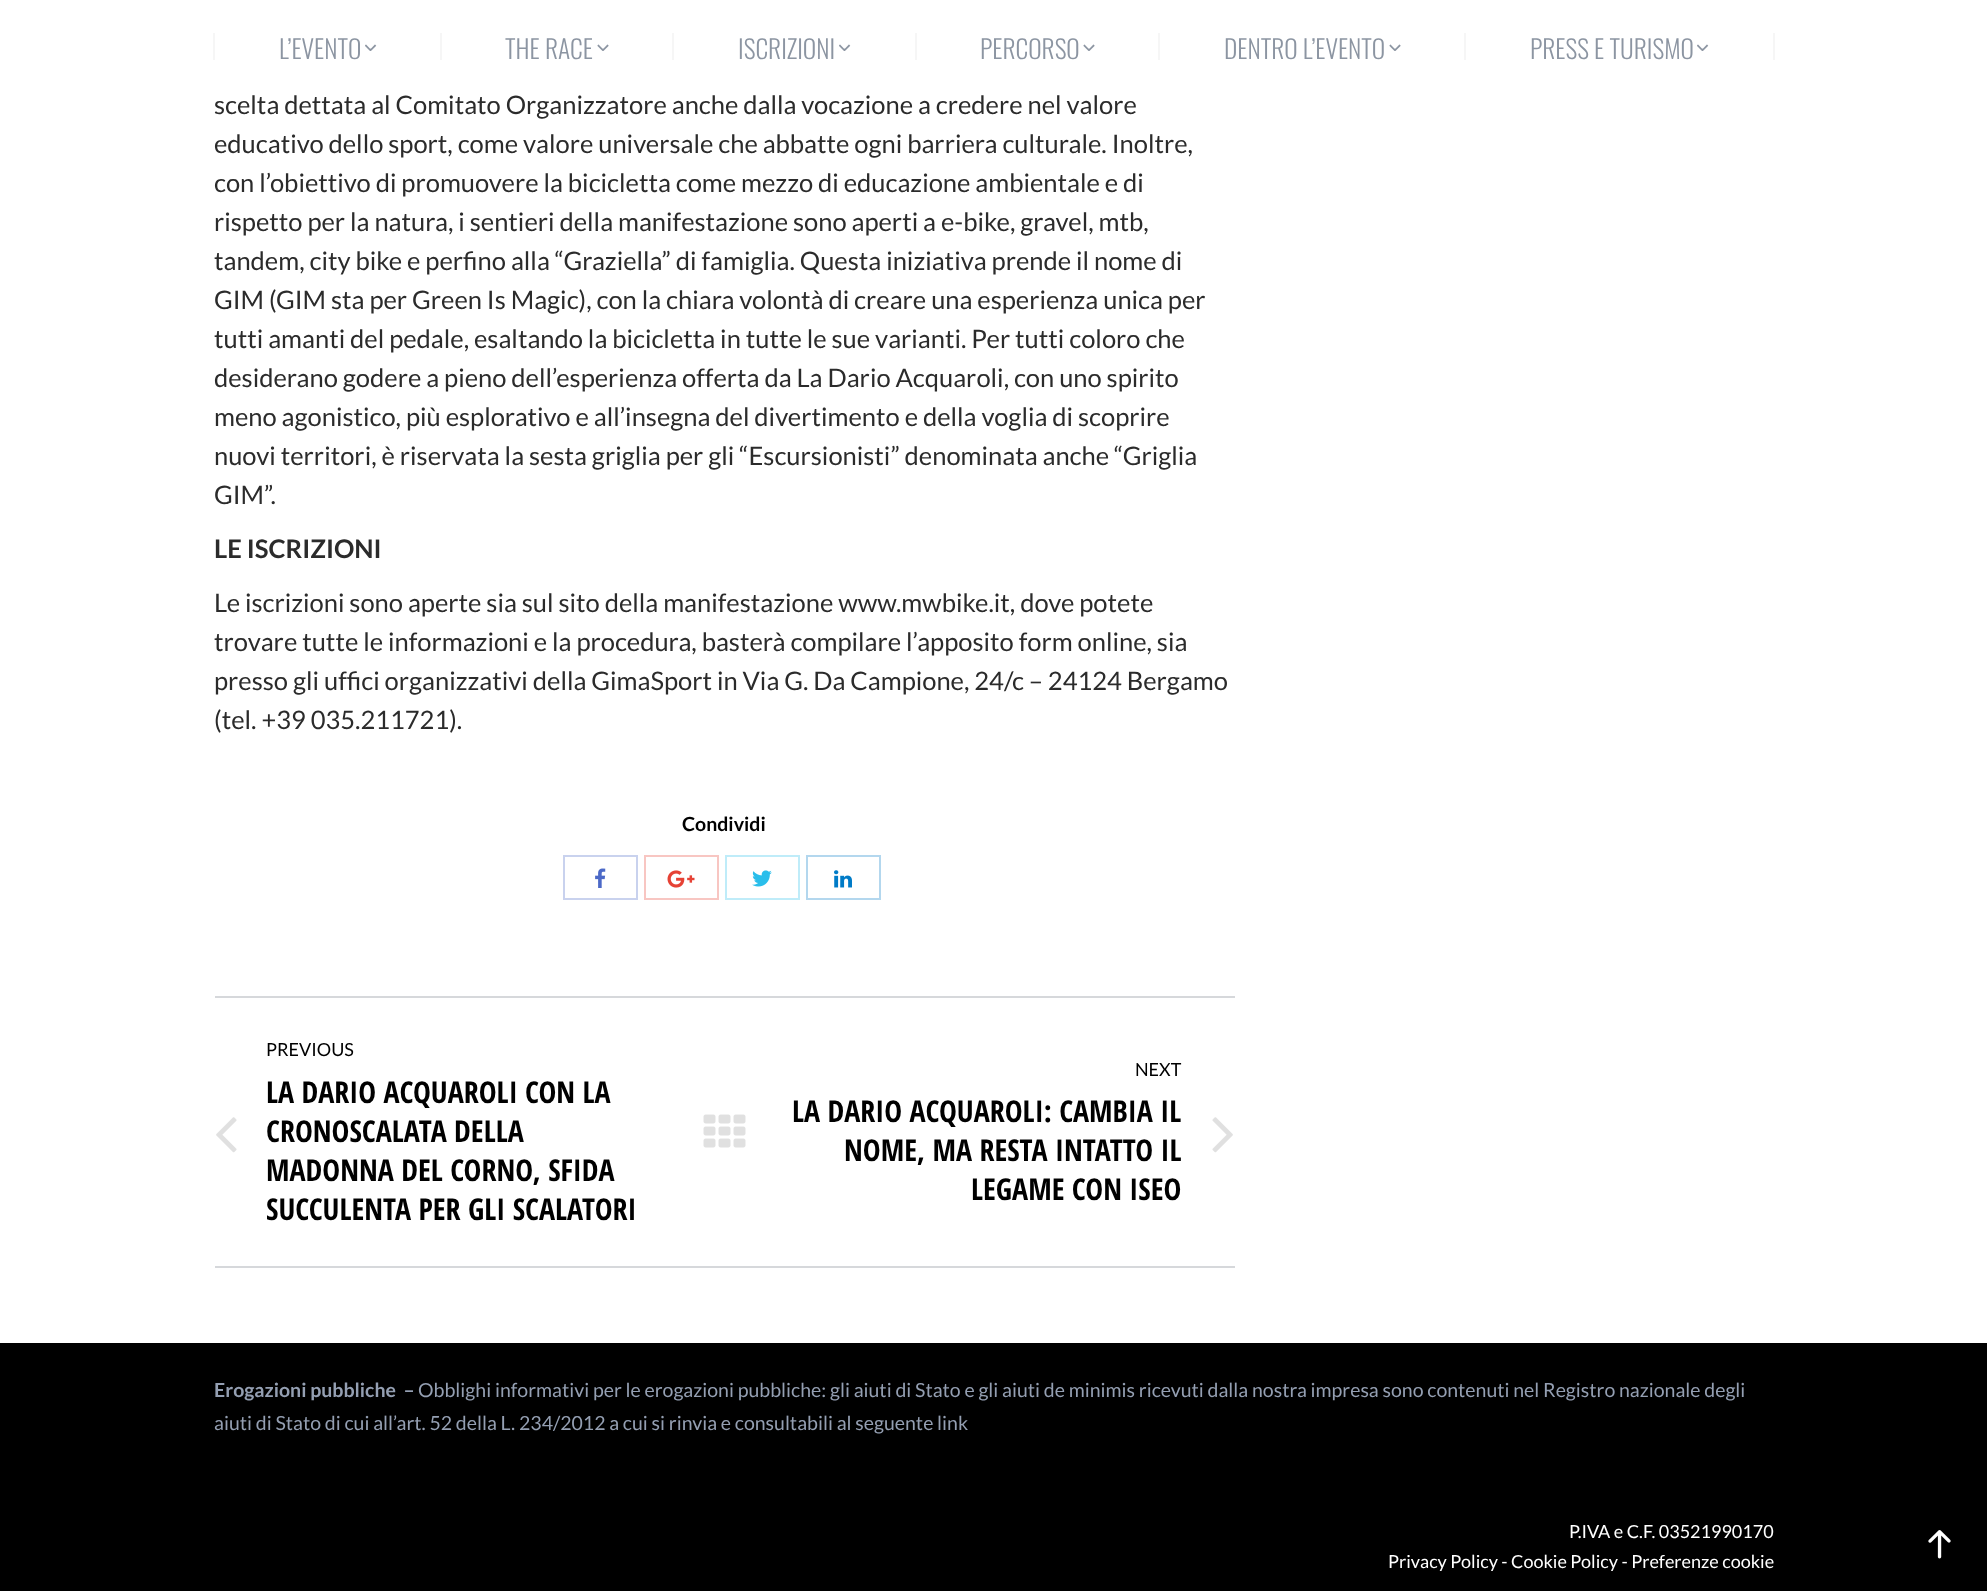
(async () => {
  const canvas = document.querySelector("canvas");
  canvas.width = 1987;
  canvas.height = 1591;
  const ctx = canvas.getContext("2d");
  ctx.miterLimit = 4;
  ctx.fontKerning = "normal";
  async function loadImage(src) {
    const img = new Image();
    img.src = src;
    await img.decode();
    return img;
  }

  ctx.fillStyle = "#ffffff";
  ctx.fillRect(0, 0, 1987, 1591);
  ctx.fillStyle = "#f6f6f6";
  ctx.fillRect(213, 33, 2, 27);
  ctx.drawImage(await loadImage("img/1.png"), 365, 44, 12, 7);
  ctx.fillStyle = "rgba(226, 226, 226, 0.3)";
  ctx.fillRect(440, 33, 2, 27);
  ctx.drawImage(await loadImage("img/2.png"), 597, 44, 12, 7);
  ctx.fillRect(672, 33, 2, 27);
  ctx.drawImage(await loadImage("img/1.png"), 839, 44, 12, 7);
  ctx.fillStyle = "#f6f6f6";
  ctx.fillRect(915, 33, 2, 27);
  ctx.drawImage(await loadImage("img/2.png"), 1083, 44, 12, 7);
  ctx.fillRect(1158, 33, 2, 27);
  ctx.drawImage(await loadImage("img/2.png"), 1389, 44, 12, 7);
  ctx.fillRect(1464, 33, 2, 27);
  ctx.drawImage(await loadImage("img/1.png"), 1697, 44, 12, 7);
  ctx.fillRect(1773, 33, 2, 27);
  ctx.strokeStyle = "#c9d2ee";
  ctx.lineWidth = 2;
  ctx.strokeRect(564, 856, 73, 43);
  ctx.drawImage(await loadImage("img/3.png"), 595, 868, 11, 20);
  ctx.strokeStyle = "#f8c6c2";
  ctx.strokeRect(645, 856, 73, 43);
  ctx.drawImage(await loadImage("img/4.png"), 667, 870, 28, 18);
  ctx.strokeStyle = "#bfecf9";
  ctx.strokeRect(726, 856, 73, 43);
  ctx.drawImage(await loadImage("img/5.png"), 752, 870, 20, 17);
  ctx.strokeStyle = "#b3d7ee";
  ctx.strokeRect(807, 856, 73, 43);
  ctx.drawImage(await loadImage("img/6.png"), 834, 870, 18, 18);
  ctx.fillStyle = "#d6d8db";
  ctx.fillRect(215, 996, 1020, 2);
  ctx.fillRect(215, 1266, 1020, 2);
  ctx.drawImage(await loadImage("img/7.png"), 216, 1117, 21, 36);
  ctx.drawImage(await loadImage("img/8.png"), 703, 1114, 43, 34);
  ctx.drawImage(await loadImage("img/9.png"), 1212, 1117, 21, 36);
  ctx.fillStyle = "#000000";
  ctx.fillRect(0, 1343, 1987, 248);
  ctx.drawImage(await loadImage("img/10.png"), 1928, 1530, 23, 29);
  ctx.font = "300 25.5px Oswald";
  ctx.fillStyle = "#8c95a2";
  for (const [text, x, y] of [
    ["L’EVENTO", 279, 59],
    ["THE RACE", 505, 59],
    ["ISCRIZIONI", 738, 59],
    ["PERCORSO", 980, 59],
    ["DENTRO L’EVENTO", 1224, 59],
    ["PRESS E TURISMO", 1530, 59],
  ]) {
    ctx.fillText(text, x, y);
  }
  ctx.font = "25.5px Lato";
  ctx.fillStyle = "#2b2b2b";
  for (const [text, x, y] of [
    ["scelta dettata al Comitato Organizzatore anche dalla vocazione a credere nel valore", 214, 114],
    ["educativo dello sport, come valore universale che abbatte ogni barriera culturale. Inoltre,", 214, 153],
    ["con l’obiettivo di promuovere la bicicletta come mezzo di educazione ambientale e di", 214, 192],
    ["rispetto per la natura, i sentieri della manifestazione sono aperti a e-bike, gravel, mtb,", 214, 231],
    ["tandem, city bike e perfino alla “Graziella” di famiglia. Questa iniziativa prende il nome di", 214, 270],
    ["GIM (GIM sta per Green Is Magic), con la chiara volontà di creare una esperienza unica per", 214, 309],
    ["tutti amanti del pedale, esaltando la bicicletta in tutte le sue varianti. Per tutti coloro che", 214, 348],
    ["desiderano godere a pieno dell’esperienza offerta da La Dario Acquaroli, con uno spirito", 214, 387],
    ["meno agonistico, più esplorativo e all’insegna del divertimento e della voglia di scoprire", 214, 426],
    ["nuovi territori, è riservata la sesta griglia per gli “Escursionisti” denominata anche “Griglia", 214, 465],
    ["GIM”.", 214, 504],
  ]) {
    ctx.fillText(text, x, y);
  }
  ctx.font = "bold 25.5px Lato";
  ctx.fillText("LE ISCRIZIONI", 214, 558);
  ctx.font = "25.5px Lato";
  for (const [text, x, y] of [
    ["Le iscrizioni sono aperte sia sul sito della manifestazione www.mwbike.it, dove potete", 214, 612],
    ["trovare tutte le informazioni e la procedura, basterà compilare l’apposito form online, sia", 214, 651],
    ["presso gli uffici organizzativi della GimaSport in Via G. Da Campione, 24/c – 24124 Bergamo", 214, 690],
    ["(tel. +39 035.211721).", 214, 729],
  ]) {
    ctx.fillText(text, x, y);
  }
  ctx.font = "bold 19.5px Lato";
  ctx.fillStyle = "#000000";
  ctx.fillText("Condividi", 682, 831);
  ctx.font = "18px Lato";
  ctx.fillText("PREVIOUS", 266, 1056);
  ctx.font = "bold 30px Open Sans Condensed";
  for (const [text, x, y] of [
    ["LA DARIO ACQUAROLI CON LA", 266, 1103],
    ["CRONOSCALATA DELLA", 266, 1142],
    ["MADONNA DEL CORNO, SFIDA", 266, 1181],
    ["SUCCULENTA PER GLI SCALATORI", 266, 1220],
  ]) {
    ctx.fillText(text, x, y);
  }
  ctx.font = "18px Lato";
  ctx.fillText("NEXT", 1135, 1076);
  ctx.font = "bold 30px Open Sans Condensed";
  for (const [text, x, y] of [
    ["LA DARIO ACQUAROLI: CAMBIA IL", 792, 1122],
    ["NOME, MA RESTA INTATTO IL", 844, 1161],
    ["LEGAME CON ISEO", 971, 1200],
  ]) {
    ctx.fillText(text, x, y);
  }
  ctx.font = "bold 19.5px Lato";
  ctx.fillStyle = "#949fb2";
  ctx.fillText("Erogazioni pubbliche  –", 214, 1397);
  ctx.font = "19.5px Lato";
  ctx.fillText("Obblighi informativi per le erogazioni pubbliche: gli aiuti di Stato e gli aiuti de minimis ricevuti dalla nostra impresa sono contenuti nel Registro nazionale degli", 418, 1397);
  ctx.fillText("aiuti di Stato di cui all’art. 52 della L. 234/2012 a cui si rinvia e consultabili al seguente link", 214, 1430);
  ctx.font = "18px Lato";
  ctx.fillStyle = "#ffffff";
  ctx.fillText("P.IVA e C.F. 03521990170", 1569, 1538);
  ctx.fillText("Privacy Policy - Cookie Policy - Preferenze cookie", 1388, 1568);
})();
